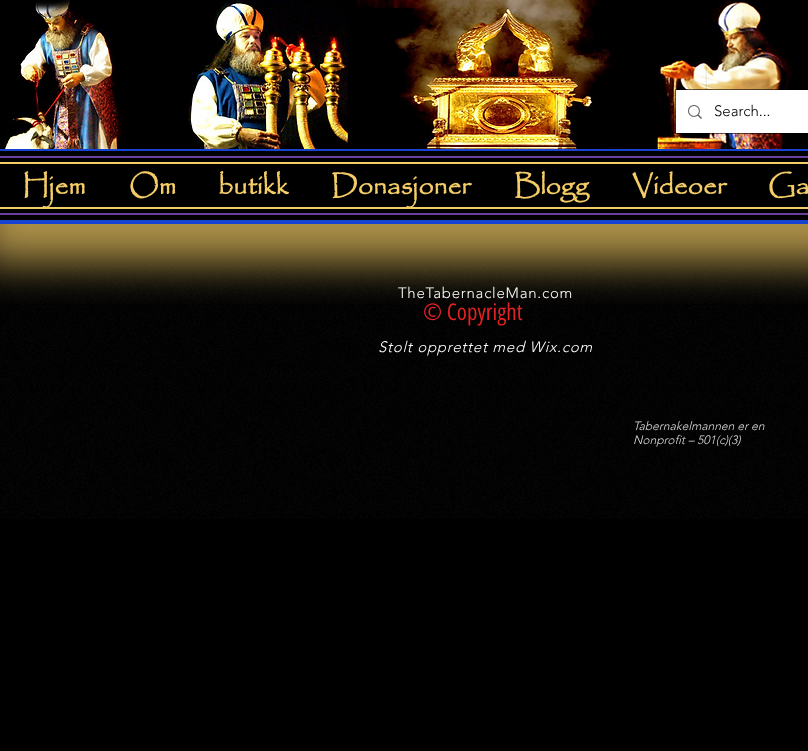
(async () => {
  const canvas = document.querySelector("canvas");
  canvas.width = 808;
  canvas.height = 751;
  const ctx = canvas.getContext("2d");
  ctx.miterLimit = 4;
  ctx.fontKerning = "normal";
  async function loadImage(src) {
    const img = new Image();
    img.src = src;
    await img.decode();
    return img;
  }

  ctx.fillStyle = "#000000";
  ctx.fillRect(0, 0, 808, 751);
  ctx.drawImage(await loadImage("img/3.png"), 0, 264, 808, 255);
  ctx.save();
  ctx.beginPath();
  ctx.rect(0, 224, 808, 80);
  ctx.clip();
  ctx.fillStyle = "rgba(245, 205, 103, 0.7)";
  ctx.filter = "blur(21.5px)";
  ctx.beginPath();
  ctx.rect(-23, -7, 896, 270);
  ctx.fill();
  ctx.filter = "none";
  ctx.restore();
  ctx.drawImage(await loadImage("img/1.png"), 2, 0, 790, 149);
  ctx.strokeStyle = "rgba(0, 0, 0, 0.6)";
  ctx.strokeRect(675.5, 89.5, 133, 44);
  ctx.fillStyle = "#ffffff";
  ctx.fillRect(676, 90, 132, 43);
  ctx.drawImage(await loadImage("img/2.png"), 688, 105, 14, 14);
  for (const [x, y, w, h, color] of [
    [0, 149, 808, 2, "#1743d4"],
    [0, 156, 808, 2, "#693fa1"],
    [0, 162, 808, 2, "#f5cd67"],
    [0, 207, 808, 2, "#f5cd67"],
    [0, 213, 808, 2, "#693fa1"],
    [0, 220, 808, 4, "#1743d4"],
  ]) {
    ctx.fillStyle = color;
    ctx.fillRect(x, y, w, h);
  }
  ctx.font = "300 15px 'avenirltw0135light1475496'";
  ctx.fillStyle = "#000000";
  ctx.fillText("Search...", 714, 116);
  ctx.font = "bold 27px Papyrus";
  ctx.fillStyle = "#f5cd67";
  for (const [text, x, y] of [
    ["Hjem", 22, 194],
    ["Om", 129, 194],
    ["butikk", 218, 194],
    ["Donasjoner", 331, 194],
    ["Blogg", 514, 194],
    ["Videoer", 632, 194],
    ["Ga", 768, 194],
  ]) {
    ctx.fillText(text, x, y);
  }
  ctx.letterSpacing = "0.75px";
  ctx.font = "300 15px 'avenirltw0135light1475496'";
  ctx.fillStyle = "#fffffe";
  ctx.fillText("TheTabernacleMan.com", 398, 298);
  ctx.font = "italic 300 15px 'avenirltw0135light1475496'";
  ctx.fillText("Stolt opprettet med Wix.com", 378, 352);
  ctx.letterSpacing = "0px";
  ctx.font = "23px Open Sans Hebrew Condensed";
  ctx.fillStyle = "#e52222";
  ctx.fillText("© Copyright", 423, 320);
  ctx.font = "italic 300 12px 'avenirltw0135light1475496'";
  ctx.fillStyle = "#dbdbdb";
  ctx.fillText("Tabernakelmannen er en", 633, 430);
  ctx.fillText("Nonprofit – 501(c)(3)", 633, 444);
})();
